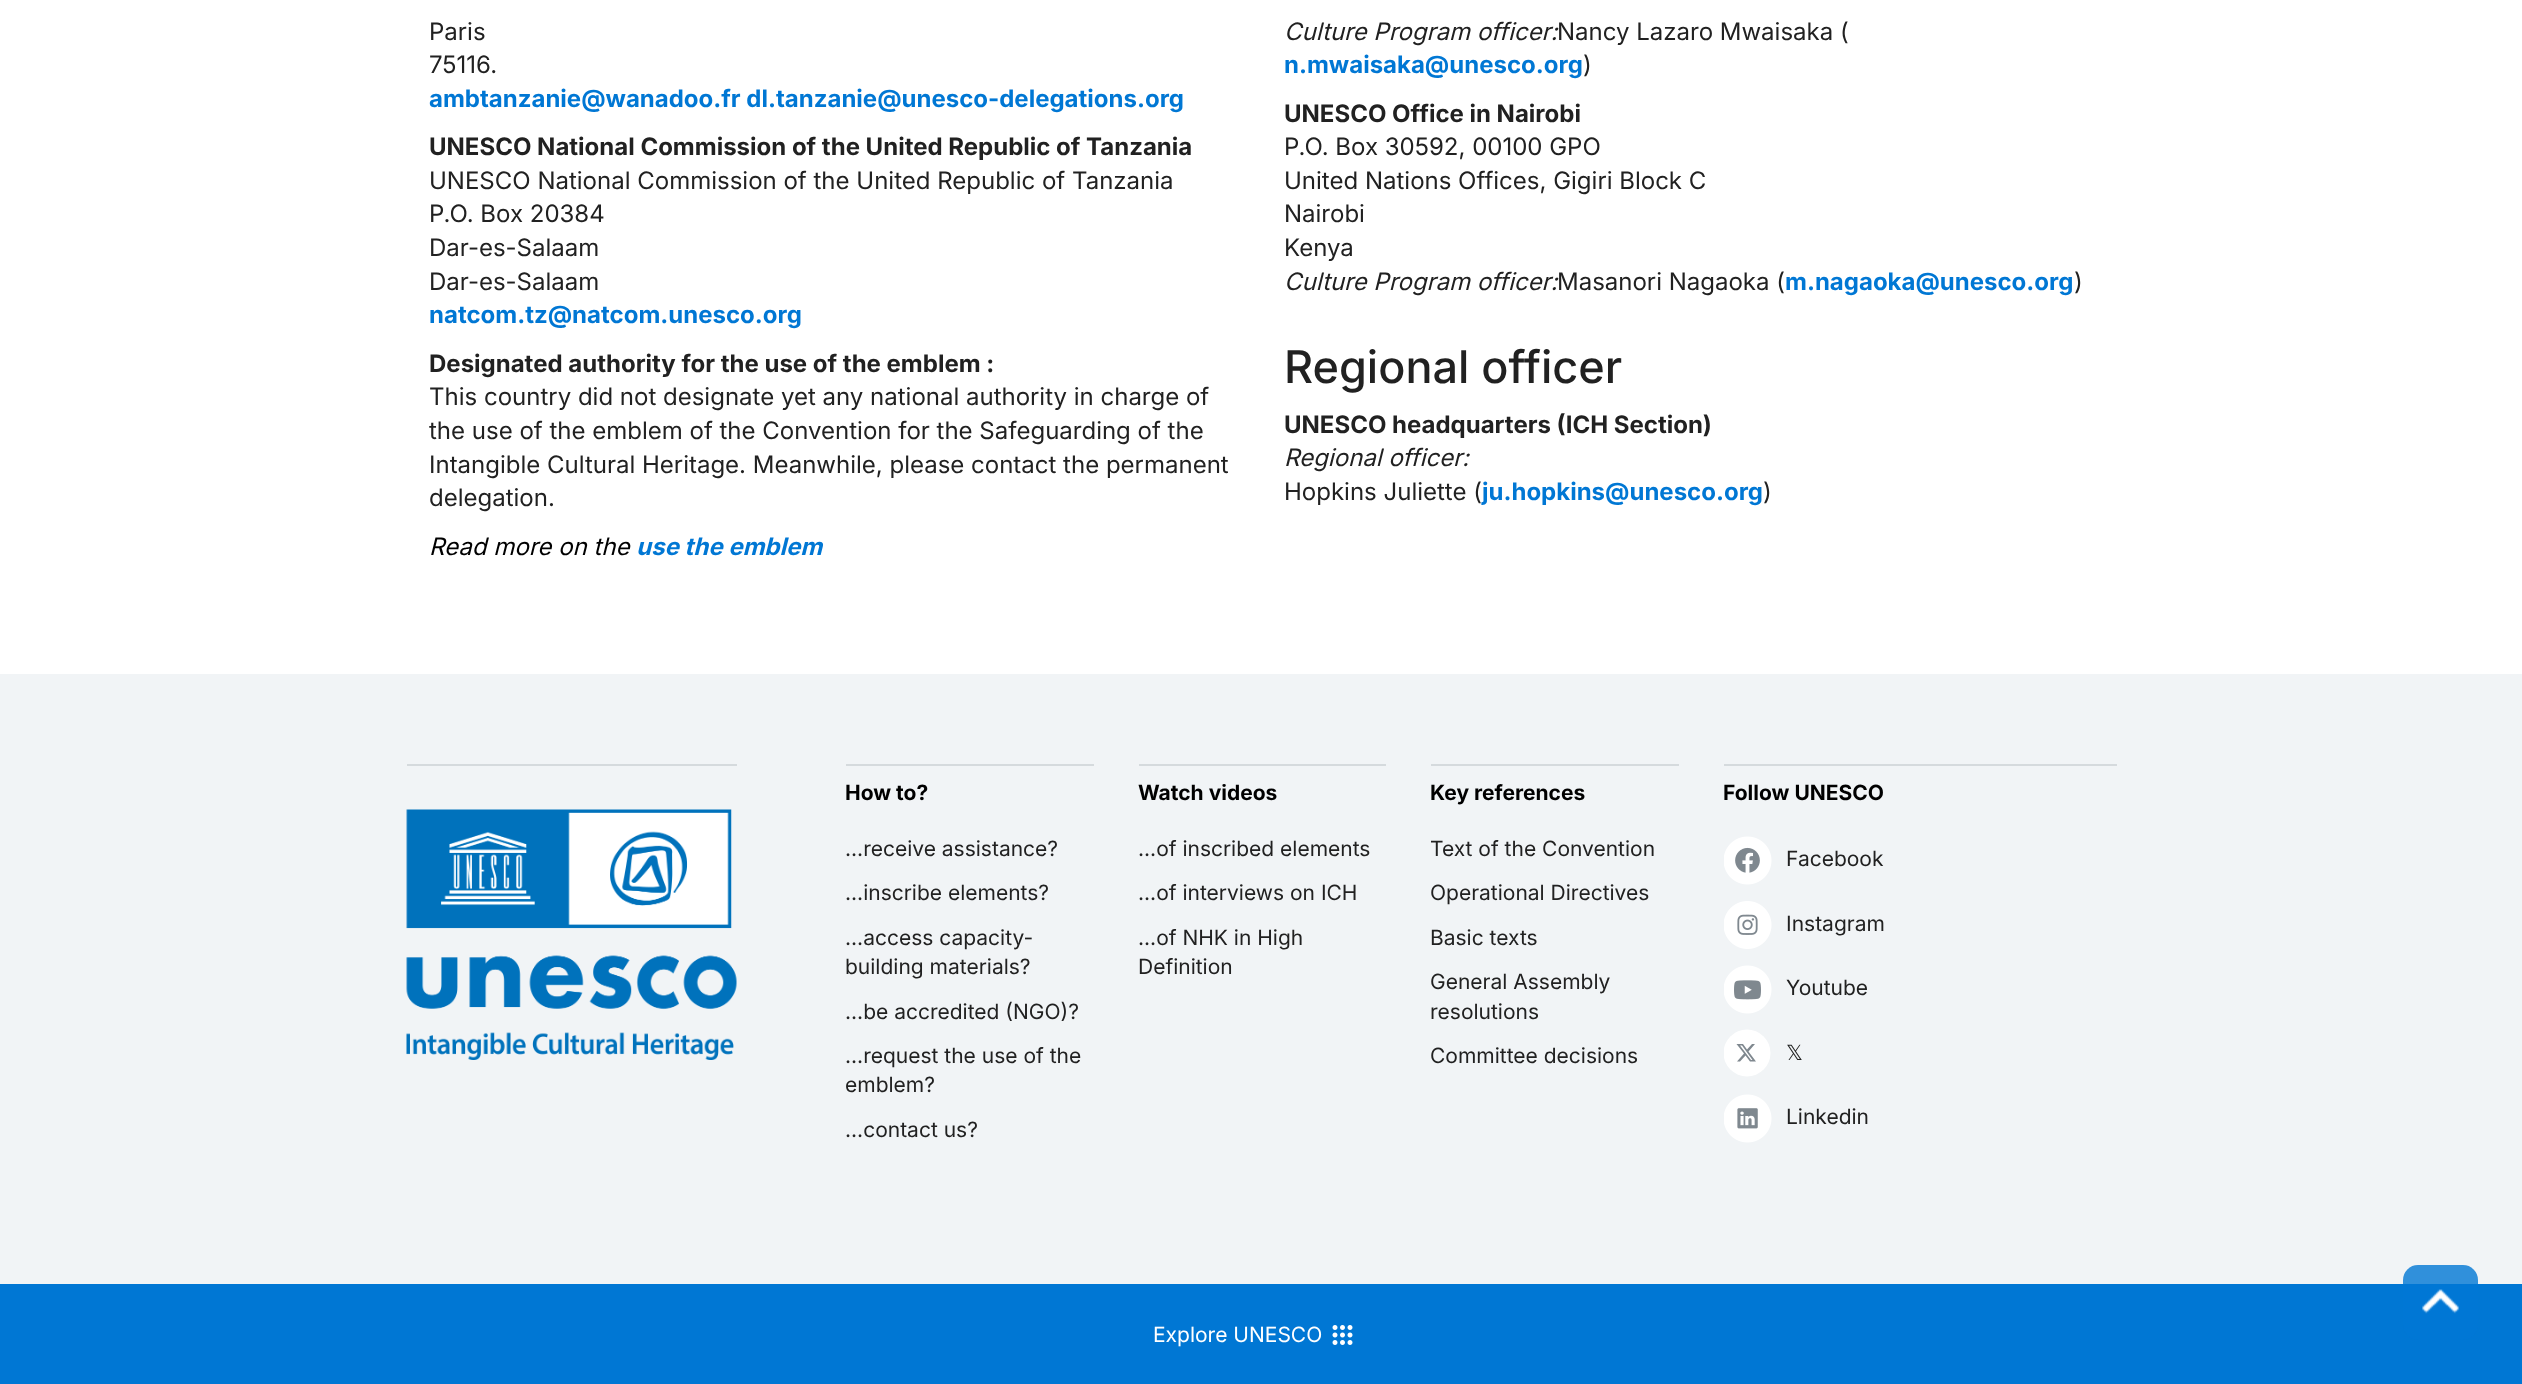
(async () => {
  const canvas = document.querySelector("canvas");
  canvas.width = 2522;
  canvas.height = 1384;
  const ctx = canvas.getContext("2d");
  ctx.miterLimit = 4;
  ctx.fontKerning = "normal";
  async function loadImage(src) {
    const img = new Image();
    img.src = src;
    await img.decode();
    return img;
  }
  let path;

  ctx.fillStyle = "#ffffff";
  ctx.fillRect(0, 0, 2522, 1384);
  ctx.fillStyle = "#f1f4f6";
  ctx.fillRect(0, 674, 2522, 610);
  ctx.fillStyle = "#d5dadd";
  ctx.fillRect(407, 764, 330, 2);
  ctx.drawImage(await loadImage("img/1.png"), 406, 809, 331, 251);
  for (const [x, y, w, h, color] of [
    [846, 764, 248, 2, "#d5dadd"],
    [1139, 764, 247, 2, "#d5dadd"],
    [1431, 764, 248, 2, "#d5dadd"],
    [1724, 764, 393, 2, "#d5dadd"],
  ]) {
    ctx.fillStyle = color;
    ctx.fillRect(x, y, w, h);
  }
  ctx.drawImage(await loadImage("img/2.png"), 1724, 836, 48, 49);
  ctx.drawImage(await loadImage("img/3.png"), 1724, 901, 48, 48);
  ctx.drawImage(await loadImage("img/4.png"), 1724, 965, 48, 49);
  ctx.save();
  ctx.beginPath();
  ctx.rect(1724, 1029, 48, 50);
  ctx.clip();
  ctx.fillStyle = "#ffffff";
  ctx.beginPath();
  ctx.arc(1747, 1053, 23.5, 0, Math.PI * 2);
  ctx.fill();
  ctx.restore();
  ctx.fillStyle = "#7f888f";
  path = new Path2D("M1752 1044H1755L1748.5 1051.5L1756 1061.5H1750L1745.5 1055.5L1740 1061.5H1737L1744 1053.5L1736.5 1044H1743L1747 1049.5ZM1751 1060H1752.5L1742 1045.5H1740Z");
  ctx.fill(path);
  ctx.drawImage(await loadImage("img/5.png"), 1724, 1094, 48, 49);
  ctx.fillStyle = "#0077d4";
  ctx.fillRect(0, 1284, 2522, 100);
  ctx.drawImage(await loadImage("img/6.png"), 1332, 1325, 21, 20);
  ctx.fillStyle = "rgba(0, 119, 212, 0.8)";
  ctx.beginPath();
  ctx.roundRect(2403, 1265, 75, 75, 15);
  ctx.fill();
  ctx.drawImage(await loadImage("img/7.png"), 2422, 1289, 37, 25);
  ctx.font = "24px Inter";
  ctx.fillStyle = "#212121";
  ctx.fillText("Paris", 429, 40);
  ctx.fillText("75116.", 429, 73);
  ctx.font = "bold 24px Inter";
  ctx.fillStyle = "#0077d4";
  ctx.fillText("ambtanzanie@wanadoo.fr dl.tanzanie@unesco-delegations.org", 429, 107);
  ctx.fillStyle = "#212121";
  ctx.fillText("UNESCO National Commission of the United Republic of Tanzania", 429, 155);
  ctx.font = "24px Inter";
  for (const [text, x, y] of [
    ["UNESCO National Commission of the United Republic of Tanzania", 429, 189],
    ["P.O. Box 20384", 429, 222],
    ["Dar-es-Salaam", 429, 256],
    ["Dar-es-Salaam", 429, 290],
  ]) {
    ctx.fillText(text, x, y);
  }
  ctx.font = "bold 24px Inter";
  ctx.fillStyle = "#0077d4";
  ctx.fillText("natcom.tz@natcom.unesco.org", 429, 323);
  ctx.fillStyle = "#212121";
  ctx.fillText("Designated authority for the use of the emblem :", 429, 372);
  ctx.font = "24px Inter";
  for (const [text, x, y] of [
    ["This country did not designate yet any national authority in charge of", 429, 405],
    ["the use of the emblem of the Convention for the Safeguarding of the", 429, 439],
    ["Intangible Cultural Heritage. Meanwhile, please contact the permanent", 429, 473],
    ["delegation.", 429, 506],
  ]) {
    ctx.fillText(text, x, y);
  }
  ctx.font = "italic 24px Inter";
  ctx.fillStyle = "#000000";
  ctx.fillText("Read more on the", 429, 555);
  ctx.font = "italic bold 24px Inter";
  ctx.fillStyle = "#0077d4";
  ctx.fillText("use the emblem", 636, 555);
  ctx.font = "italic 24px Inter";
  ctx.fillStyle = "#212121";
  ctx.fillText("Culture Program officer:", 1284, 40);
  ctx.font = "24px Inter";
  ctx.fillText("Nancy Lazaro Mwaisaka (", 1557, 40);
  ctx.font = "bold 24px Inter";
  ctx.fillStyle = "#0077d4";
  ctx.fillText("n.mwaisaka@unesco.org", 1284, 73);
  ctx.font = "24px Inter";
  ctx.fillStyle = "#212121";
  ctx.fillText(")", 1583, 73);
  ctx.font = "bold 24px Inter";
  ctx.fillText("UNESCO Office in Nairobi", 1284, 122);
  ctx.font = "24px Inter";
  for (const [text, x, y] of [
    ["P.O. Box 30592, 00100 GPO", 1284, 155],
    ["United Nations Offices, Gigiri Block C", 1284, 189],
    ["Nairobi", 1284, 222],
    ["Kenya", 1284, 256],
  ]) {
    ctx.fillText(text, x, y);
  }
  ctx.font = "italic 24px Inter";
  ctx.fillText("Culture Program officer:", 1284, 290);
  ctx.font = "24px Inter";
  ctx.fillText("Masanori Nagaoka (", 1557, 290);
  ctx.font = "bold 24px Inter";
  ctx.fillStyle = "#0077d4";
  ctx.fillText("m.nagaoka@unesco.org", 1785, 290);
  ctx.font = "24px Inter";
  ctx.fillStyle = "#212121";
  ctx.fillText(")", 2074, 290);
  ctx.font = "500 45px Inter";
  ctx.fillText("Regional officer", 1284, 383);
  ctx.font = "bold 24px Inter";
  ctx.fillText("UNESCO headquarters (ICH Section)", 1284, 433);
  ctx.font = "italic 24px Inter";
  ctx.fillText("Regional officer:", 1284, 466);
  ctx.font = "24px Inter";
  ctx.fillText("Hopkins Juliette (", 1284, 500);
  ctx.font = "bold 24px Inter";
  ctx.fillStyle = "#0077d4";
  ctx.fillText("ju.hopkins@unesco.org", 1482, 500);
  ctx.font = "24px Inter";
  ctx.fillStyle = "#212121";
  ctx.fillText(")", 1763, 500);
  ctx.font = "bold 21px Inter";
  ctx.fillStyle = "#000000";
  ctx.fillText("How to?", 845, 800);
  ctx.font = "21px Inter";
  ctx.fillStyle = "#212121";
  for (const [text, x, y] of [
    ["...receive assistance?", 845, 856],
    ["...inscribe elements?", 845, 900],
    ["...access capacity-", 845, 945],
    ["building materials?", 845, 974],
    ["...be accredited (NGO)?", 845, 1019],
    ["...request the use of the", 845, 1063],
    ["emblem?", 845, 1092],
    ["...contact us?", 845, 1137],
  ]) {
    ctx.fillText(text, x, y);
  }
  ctx.font = "bold 21px Inter";
  ctx.fillStyle = "#000000";
  ctx.fillText("Watch videos", 1138, 800);
  ctx.font = "21px Inter";
  ctx.fillStyle = "#212121";
  for (const [text, x, y] of [
    ["...of inscribed elements", 1138, 856],
    ["...of interviews on ICH", 1138, 900],
    ["...of NHK in High", 1138, 945],
    ["Definition", 1138, 974],
  ]) {
    ctx.fillText(text, x, y);
  }
  ctx.font = "bold 21px Inter";
  ctx.fillStyle = "#000000";
  ctx.fillText("Key references", 1430, 800);
  ctx.font = "21px Inter";
  ctx.fillStyle = "#212121";
  for (const [text, x, y] of [
    ["Text of the Convention", 1430, 856],
    ["Operational Directives", 1430, 900],
    ["Basic texts", 1430, 945],
    ["General Assembly", 1430, 989],
    ["resolutions", 1430, 1019],
    ["Committee decisions", 1430, 1063],
  ]) {
    ctx.fillText(text, x, y);
  }
  ctx.font = "bold 21px Inter";
  ctx.fillStyle = "#000000";
  ctx.fillText("Follow UNESCO", 1723, 800);
  ctx.font = "21px Inter";
  ctx.fillStyle = "#212121";
  for (const [text, x, y] of [
    ["Facebook", 1786, 866],
    ["Instagram", 1786, 931],
    ["Youtube", 1786, 995],
  ]) {
    ctx.fillText(text, x, y);
  }
  ctx.font = "21px DejaVu Sans";
  ctx.fillText("𝕏", 1786, 1060);
  ctx.font = "21px Inter";
  ctx.fillText("Linkedin", 1786, 1124);
  ctx.fillStyle = "#ffffff";
  ctx.fillText("Explore UNESCO", 1153, 1342);
})();
